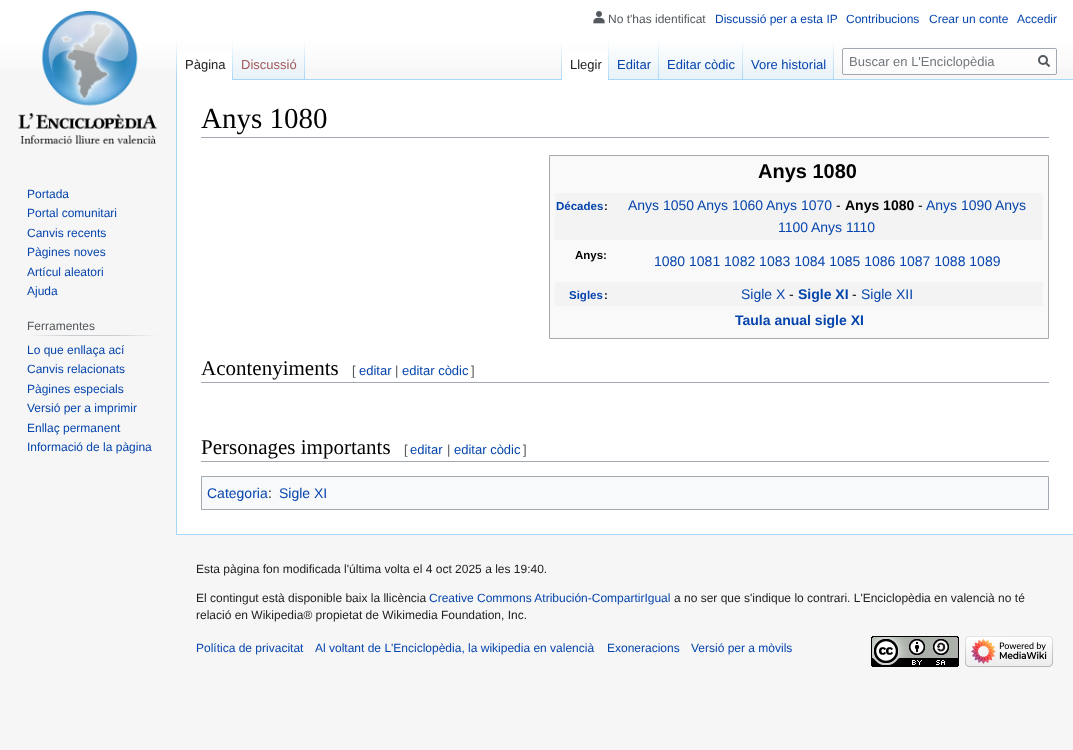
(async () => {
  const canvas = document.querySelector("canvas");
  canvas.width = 1073;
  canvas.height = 750;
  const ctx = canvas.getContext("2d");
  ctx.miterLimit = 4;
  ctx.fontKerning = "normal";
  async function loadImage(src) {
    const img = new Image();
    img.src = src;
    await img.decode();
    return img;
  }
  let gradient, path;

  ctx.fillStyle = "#f6f6f6";
  ctx.fillRect(0, 0, 1073, 750);
  gradient = ctx.createLinearGradient(537, 0, 537, 80);
  gradient.addColorStop(0.5, "#ffffff");
  gradient.addColorStop(1, "#f6f6f6");
  ctx.fillStyle = gradient;
  ctx.fillRect(0, 0, 1073, 69);
  ctx.drawImage(await loadImage("img/1.png"), 593, 11, 12, 13);
  ctx.fillStyle = "#a7d7f9";
  ctx.fillRect(176, 534, 897, 1);
  ctx.fillRect(176, 79, 1, 456);
  gradient = ctx.createLinearGradient(177, 40, 177, 80);
  gradient.addColorStop(0, "rgba(167, 215, 249, 0)");
  gradient.addColorStop(1, "#a7d7f9");
  ctx.fillStyle = gradient;
  ctx.fillRect(176, 40, 1, 40);
  ctx.fillStyle = "#ffffff";
  ctx.fillRect(177, 51, 55, 29);
  gradient = ctx.createLinearGradient(233, 40, 233, 80);
  gradient.addColorStop(0, "#ffffff");
  gradient.addColorStop(1, "#a7d7f9");
  ctx.fillStyle = gradient;
  ctx.fillRect(232, 40, 1, 40);
  gradient = ctx.createLinearGradient(269, 80, 269, 40);
  gradient.addColorStop(0, "#77c1f6");
  gradient.addColorStop(0.03, "#e8f2f8");
  gradient.addColorStop(1, "#ffffff");
  ctx.fillStyle = gradient;
  ctx.fillRect(233, 46, 72, 34);
  gradient = ctx.createLinearGradient(305, 40, 305, 80);
  gradient.addColorStop(0, "rgba(167, 215, 249, 0)");
  gradient.addColorStop(1, "#a7d7f9");
  ctx.fillStyle = gradient;
  ctx.fillRect(304, 40, 1, 40);
  ctx.fillStyle = "#a7d7f9";
  ctx.fillRect(305, 79, 768, 1);
  gradient = ctx.createLinearGradient(562, 40, 562, 80);
  gradient.addColorStop(0, "rgba(167, 215, 249, 0)");
  gradient.addColorStop(1, "#a7d7f9");
  ctx.fillStyle = gradient;
  ctx.fillRect(561, 40, 1, 40);
  ctx.fillStyle = "#ffffff";
  ctx.fillRect(562, 51, 46, 29);
  gradient = ctx.createLinearGradient(609, 40, 609, 80);
  gradient.addColorStop(0, "#ffffff");
  gradient.addColorStop(1, "#a7d7f9");
  ctx.fillStyle = gradient;
  ctx.fillRect(608, 40, 1, 40);
  gradient = ctx.createLinearGradient(634, 80, 634, 40);
  gradient.addColorStop(0, "#77c1f6");
  gradient.addColorStop(0.03, "#e8f2f8");
  gradient.addColorStop(1, "#ffffff");
  ctx.fillStyle = gradient;
  ctx.fillRect(609, 46, 50, 33);
  gradient = ctx.createLinearGradient(659, 40, 659, 80);
  gradient.addColorStop(0, "rgba(167, 215, 249, 0)");
  gradient.addColorStop(1, "#a7d7f9");
  ctx.fillStyle = gradient;
  ctx.fillRect(658, 40, 1, 40);
  gradient = ctx.createLinearGradient(701, 80, 701, 40);
  gradient.addColorStop(0, "#77c1f6");
  gradient.addColorStop(0.03, "#e8f2f8");
  gradient.addColorStop(1, "#ffffff");
  ctx.fillStyle = gradient;
  ctx.fillRect(659, 46, 84, 33);
  gradient = ctx.createLinearGradient(743, 40, 743, 80);
  gradient.addColorStop(0, "rgba(167, 215, 249, 0)");
  gradient.addColorStop(1, "#a7d7f9");
  ctx.fillStyle = gradient;
  ctx.fillRect(742, 40, 1, 40);
  gradient = ctx.createLinearGradient(789, 80, 789, 40);
  gradient.addColorStop(0, "#77c1f6");
  gradient.addColorStop(0.03, "#e8f2f8");
  gradient.addColorStop(1, "#ffffff");
  ctx.fillStyle = gradient;
  ctx.fillRect(743, 46, 91, 33);
  gradient = ctx.createLinearGradient(834, 40, 834, 80);
  gradient.addColorStop(0, "rgba(167, 215, 249, 0)");
  gradient.addColorStop(1, "#a7d7f9");
  ctx.fillStyle = gradient;
  ctx.fillRect(833, 40, 1, 40);
  ctx.fillStyle = "rgba(255, 255, 255, 0.5)";
  ctx.beginPath();
  ctx.roundRect(842.5, 48.5, 214, 26, 1.5);
  ctx.fill();
  ctx.strokeStyle = "#a2a9b1";
  ctx.stroke();
  path = new Path2D("M1049.5 66.5L1045.5 62.5");
  ctx.strokeStyle = "#54595d";
  ctx.lineWidth = 2;
  ctx.stroke(path);
  ctx.beginPath();
  ctx.arc(1043, 60, 4, 0, Math.PI * 2);
  ctx.stroke();
  ctx.drawImage(await loadImage("img/2.png"), 18, 10, 139, 135);
  gradient = ctx.createLinearGradient(27, 336, 158, 336);
  gradient.addColorStop(0, "#f6f6f6");
  gradient.addColorStop(0.33, "#c8ccd1");
  gradient.addColorStop(0.66, "#c8ccd1");
  gradient.addColorStop(1, "#f6f6f6");
  ctx.fillStyle = gradient;
  ctx.fillRect(27, 335, 131, 1);
  ctx.fillStyle = "#ffffff";
  ctx.fillRect(177, 80, 896, 454);
  ctx.fillStyle = "#a2a9b1";
  ctx.fillRect(201, 137, 848, 1);
  ctx.fillStyle = "#f9f9f9";
  ctx.beginPath();
  ctx.rect(549.5, 155.5, 499, 183);
  ctx.fill();
  ctx.strokeStyle = "#aaaaaa";
  ctx.lineWidth = 1;
  ctx.stroke();
  for (const [x, y, w, h, color] of [
    [555, 193, 488, 47, "#f3f3f3"],
    [555, 282, 488, 24, "#f3f3f3"],
    [201, 382, 848, 1, "#a2a9b1"],
    [201, 461, 848, 1, "#a2a9b1"],
  ]) {
    ctx.fillStyle = color;
    ctx.fillRect(x, y, w, h);
  }
  ctx.fillStyle = "#f8f9fa";
  ctx.beginPath();
  ctx.rect(201.5, 476.5, 847, 33);
  ctx.fill();
  ctx.strokeStyle = "#a2a9b1";
  ctx.stroke();
  ctx.drawImage(await loadImage("img/3.png"), 871, 636, 88, 31);
  ctx.drawImage(await loadImage("img/4.png"), 965, 636, 88, 31);
  ctx.font = "12px Liberation Sans";
  ctx.fillStyle = "#54595d";
  ctx.fillText("No t'has identificat", 608, 23);
  ctx.fillStyle = "#0645ad";
  for (const [text, x, y] of [
    ["Discussió per a esta IP", 715, 23],
    ["Contribucions", 846, 23],
    ["Crear un conte", 929, 23],
    ["Accedir", 1017, 23],
  ]) {
    ctx.fillText(text, x, y);
  }
  ctx.font = "13px Liberation Sans";
  ctx.fillStyle = "#202122";
  ctx.fillText("Pàgina", 185, 69);
  ctx.fillStyle = "#a55858";
  ctx.fillText("Discussió", 241, 69);
  ctx.fillStyle = "#202122";
  ctx.fillText("Llegir", 570, 69);
  ctx.fillStyle = "#0645ad";
  for (const [text, x, y] of [
    ["Editar", 617, 69],
    ["Editar còdic", 667, 69],
    ["Vore historial", 751, 69],
  ]) {
    ctx.fillText(text, x, y);
  }
  ctx.fillStyle = "#72777d";
  ctx.fillText("Buscar en L'Enciclopèdia", 849, 66);
  ctx.font = "12px Liberation Sans";
  ctx.fillStyle = "#0645ad";
  for (const [text, x, y] of [
    ["Portada", 27, 198],
    ["Portal comunitari", 27, 217],
    ["Canvis recents", 27, 237],
    ["Pàgines noves", 27, 256],
    ["Artícul aleatori", 27, 276],
    ["Ajuda", 27, 295],
  ]) {
    ctx.fillText(text, x, y);
  }
  ctx.fillStyle = "#54595d";
  ctx.fillText("Ferramentes", 27, 330);
  ctx.fillStyle = "#0645ad";
  for (const [text, x, y] of [
    ["Lo que enllaça ací", 27, 354],
    ["Canvis relacionats", 27, 373],
    ["Pàgines especials", 27, 393],
    ["Versió per a imprimir", 27, 412],
    ["Enllaç permanent", 27, 432],
    ["Informació de la pàgina", 27, 451],
  ]) {
    ctx.fillText(text, x, y);
  }
  ctx.font = "29px Liberation Serif";
  ctx.fillStyle = "#000000";
  ctx.fillText("Anys 1080", 201, 128);
  ctx.font = "bold 20px Liberation Sans";
  ctx.fillText("Anys 1080", 758, 178);
  ctx.font = "bold 11.5px Liberation Sans";
  ctx.fillStyle = "#0645ad";
  ctx.fillText("Décades", 556, 210);
  ctx.fillStyle = "#000000";
  ctx.fillText(":", 604, 210);
  ctx.font = "14px Liberation Sans";
  ctx.fillStyle = "#0645ad";
  for (const [text, x, y] of [
    ["Anys 1050", 628, 210],
    ["Anys 1060", 697, 210],
    ["Anys 1070", 766, 210],
  ]) {
    ctx.fillText(text, x, y);
  }
  ctx.fillStyle = "#000000";
  ctx.fillText("-", 836, 210);
  ctx.font = "bold 14px Liberation Sans";
  ctx.fillText("Anys 1080", 845, 210);
  ctx.font = "14px Liberation Sans";
  ctx.fillText("-", 918, 210);
  ctx.fillStyle = "#0645ad";
  for (const [text, x, y] of [
    ["Anys 1090", 926, 210],
    ["Anys", 995, 210],
    ["1100", 778, 232],
    ["Anys 1110", 811, 232],
  ]) {
    ctx.fillText(text, x, y);
  }
  ctx.font = "bold 11.5px Liberation Sans";
  ctx.fillStyle = "#000000";
  ctx.fillText("Anys:", 575, 259);
  ctx.font = "14px Liberation Sans";
  ctx.fillStyle = "#0645ad";
  ctx.fillText("1080 1081 1082 1083 1084 1085 1086 1087 1088 1089", 654, 266);
  ctx.font = "bold 11.5px Liberation Sans";
  ctx.fillText("Sigles", 569, 299);
  ctx.fillStyle = "#000000";
  ctx.fillText(":", 604, 299);
  ctx.font = "14px Liberation Sans";
  ctx.fillStyle = "#0645ad";
  ctx.fillText("Sigle X", 741, 299);
  ctx.fillStyle = "#000000";
  ctx.fillText("-", 789, 299);
  ctx.font = "bold 14px Liberation Sans";
  ctx.fillStyle = "#0645ad";
  ctx.fillText("Sigle XI", 798, 299);
  ctx.font = "14px Liberation Sans";
  ctx.fillStyle = "#000000";
  ctx.fillText("-", 852, 299);
  ctx.fillStyle = "#0645ad";
  ctx.fillText("Sigle XII", 861, 299);
  ctx.font = "bold 14px Liberation Sans";
  ctx.fillText("Taula anual sigle XI", 735, 325);
  ctx.font = "21px Liberation Serif";
  ctx.fillStyle = "#000000";
  ctx.fillText("Acontenyiments", 201, 375);
  ctx.font = "13px Liberation Sans";
  ctx.fillStyle = "#54595d";
  ctx.fillText("[", 352, 375);
  ctx.fillStyle = "#0645ad";
  ctx.fillText("editar", 359, 375);
  ctx.fillStyle = "#54595d";
  ctx.fillText("|", 395, 375);
  ctx.fillStyle = "#0645ad";
  ctx.fillText("editar còdic", 402, 375);
  ctx.fillStyle = "#54595d";
  ctx.fillText("]", 471, 375);
  ctx.font = "21px Liberation Serif";
  ctx.fillStyle = "#000000";
  ctx.fillText("Personages importants", 201, 454);
  ctx.font = "13px Liberation Sans";
  ctx.fillStyle = "#54595d";
  ctx.fillText("[", 404, 454);
  ctx.fillStyle = "#0645ad";
  ctx.fillText("editar", 410, 454);
  ctx.fillStyle = "#54595d";
  ctx.fillText("|", 447, 454);
  ctx.fillStyle = "#0645ad";
  ctx.fillText("editar còdic", 454, 454);
  ctx.fillStyle = "#54595d";
  ctx.fillText("]", 523, 454);
  ctx.font = "14px Liberation Sans";
  ctx.fillStyle = "#0645ad";
  ctx.fillText("Categoria", 207, 498);
  ctx.fillStyle = "#202122";
  ctx.fillText(":", 268, 498);
  ctx.fillStyle = "#0645ad";
  ctx.fillText("Sigle XI", 279, 498);
  ctx.font = "12px Liberation Sans";
  ctx.fillStyle = "#202122";
  ctx.fillText("Esta pàgina fon modificada l'última volta el 4 oct 2025 a les 19:40.", 196, 573);
  ctx.fillText("El contingut està disponible baix la llicència", 196, 602);
  ctx.fillStyle = "#0645ad";
  ctx.fillText("Creative Commons Atribución-CompartirIgual", 429, 602);
  ctx.fillStyle = "#202122";
  ctx.fillText("a no ser que s'indique lo contrari. L'Enciclopèdia en valencià no té", 674, 602);
  ctx.fillText("relació en Wikipedia® propietat de Wikimedia Foundation, Inc.", 196, 619);
  ctx.fillStyle = "#0645ad";
  for (const [text, x, y] of [
    ["Política de privacitat", 196, 652],
    ["Al voltant de L'Enciclopèdia, la wikipedia en valencià", 315, 652],
    ["Exoneracions", 607, 652],
    ["Versió per a mòvils", 691, 652],
  ]) {
    ctx.fillText(text, x, y);
  }
})();
